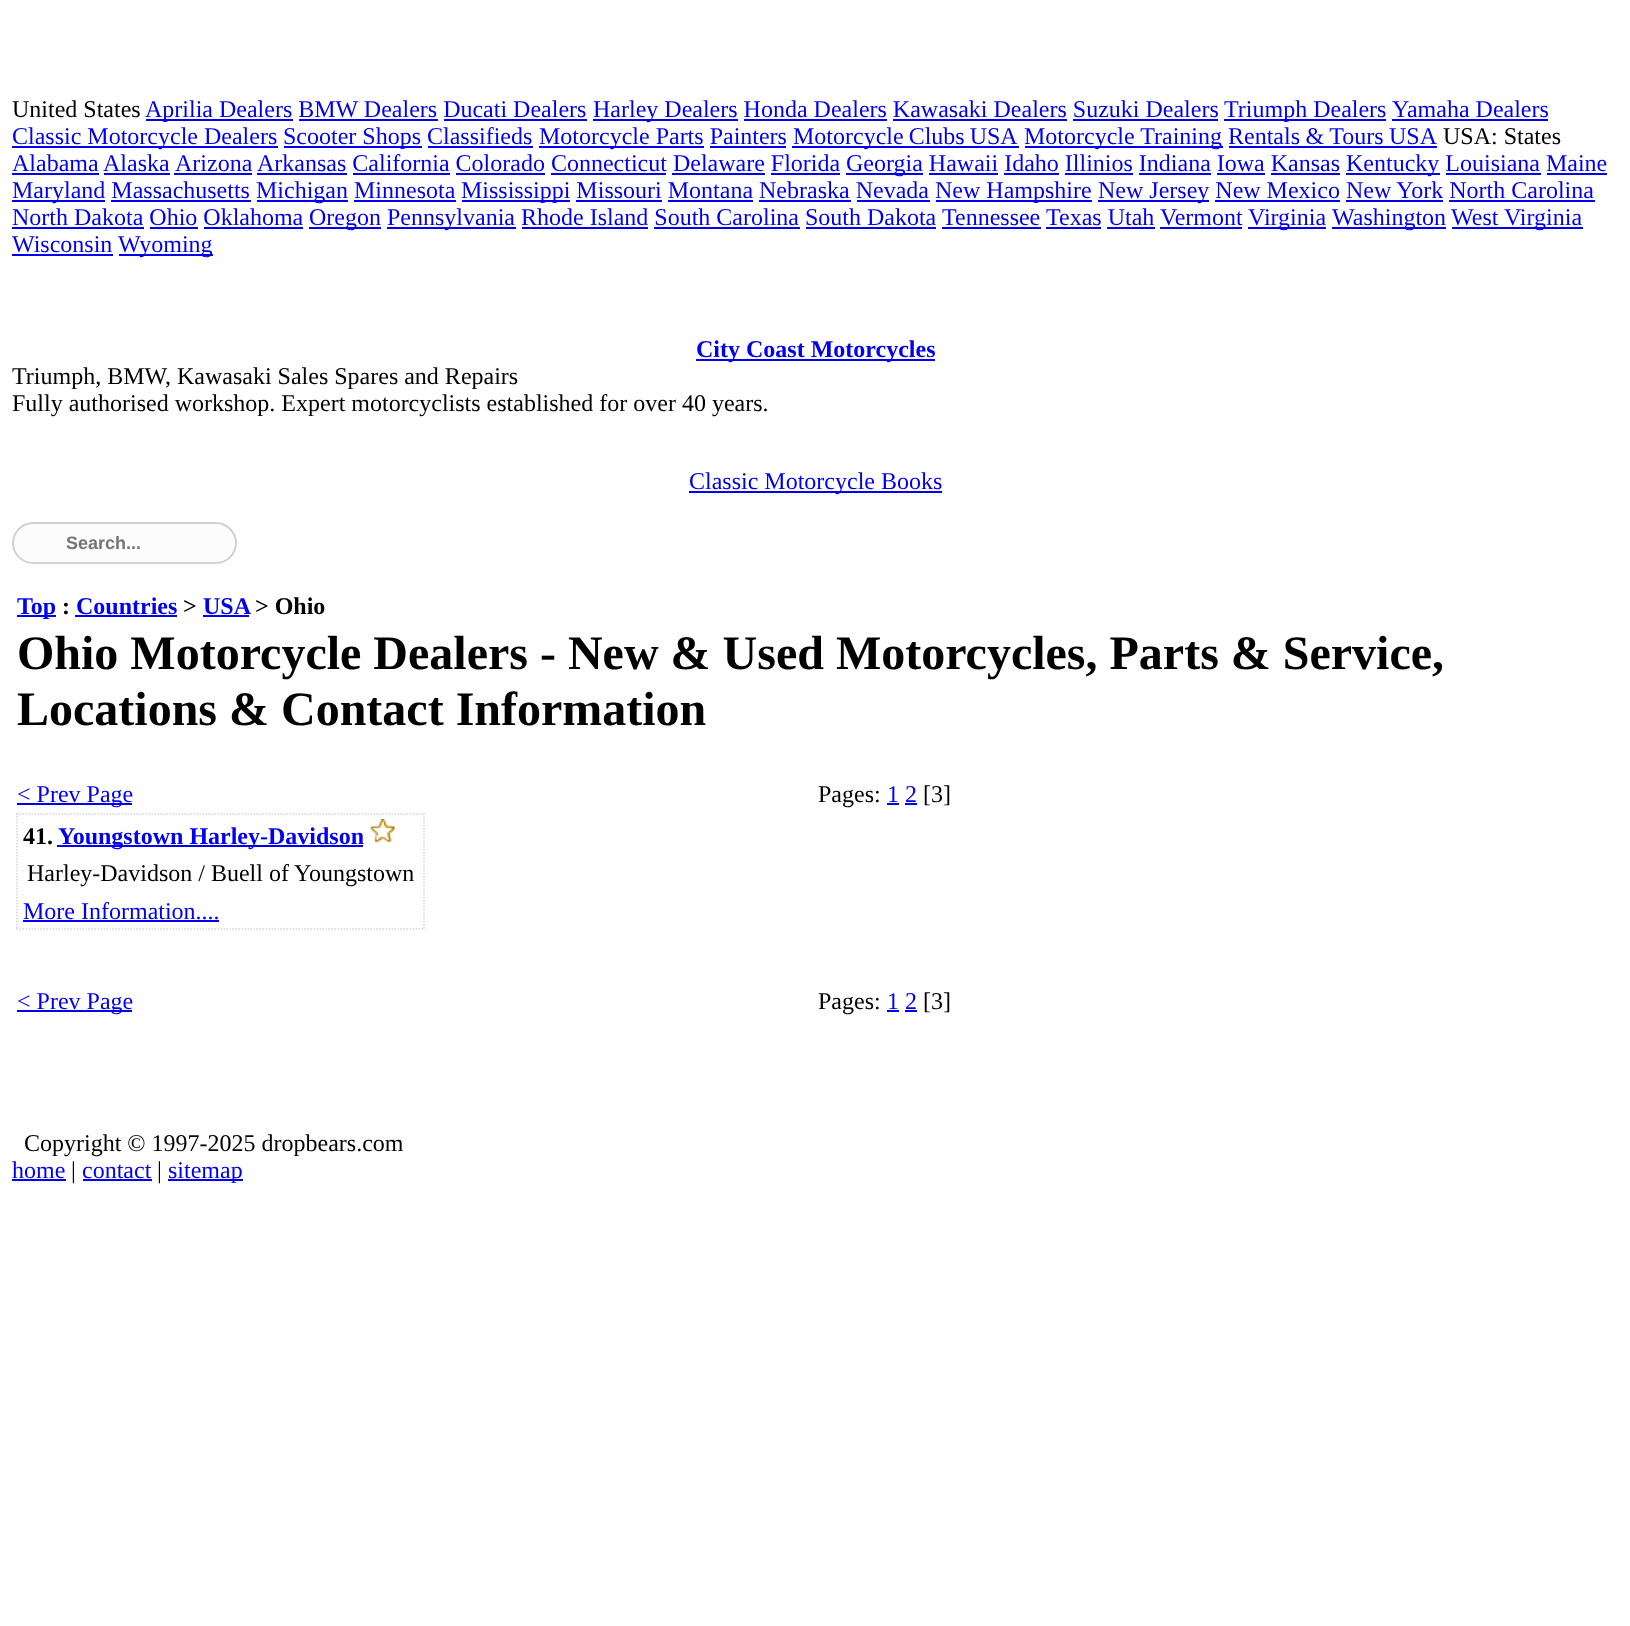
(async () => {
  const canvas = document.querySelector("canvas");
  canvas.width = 1630;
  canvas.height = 1626;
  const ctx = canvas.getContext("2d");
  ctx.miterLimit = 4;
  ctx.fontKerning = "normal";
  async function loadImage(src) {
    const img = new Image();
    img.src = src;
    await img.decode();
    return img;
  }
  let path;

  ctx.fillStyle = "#ffffff";
  ctx.fillRect(0, 0, 1630, 1626);
  for (const [x, y, w, h, color] of [
    [146, 119, 147, 2, "#0000ee"],
    [593, 119, 145, 2, "#0000ee"],
    [1224, 119, 162, 2, "#0000ee"],
    [1392, 119, 156, 2, "#0000ee"],
    [299, 119, 139, 2, "#0000ee"],
    [444, 119, 143, 2, "#0000ee"],
    [744, 119, 143, 2, "#0000ee"],
    [893, 119, 174, 2, "#0000ee"],
    [1073, 119, 145, 2, "#0000ee"],
    [12, 146, 266, 2, "#0000ee"],
    [284, 146, 138, 2, "#0000ee"],
    [539, 146, 165, 2, "#0000ee"],
    [792, 146, 227, 2, "#0000ee"],
    [1025, 146, 198, 2, "#0000ee"],
    [1229, 146, 208, 2, "#0000ee"],
    [428, 146, 105, 2, "#0000ee"],
    [710, 146, 76, 2, "#0000ee"],
    [12, 173, 87, 2, "#0000ee"],
    [104, 173, 66, 2, "#0000ee"],
    [174, 173, 78, 2, "#0000ee"],
    [257, 173, 90, 2, "#0000ee"],
    [846, 173, 77, 2, "#0000ee"],
    [1346, 173, 94, 2, "#0000ee"],
    [353, 173, 97, 2, "#0000ee"],
    [456, 173, 89, 2, "#0000ee"],
    [551, 173, 115, 2, "#0000ee"],
    [672, 173, 93, 2, "#0000ee"],
    [771, 173, 69, 2, "#0000ee"],
    [929, 173, 69, 2, "#0000ee"],
    [1004, 173, 55, 2, "#0000ee"],
    [1065, 173, 68, 2, "#0000ee"],
    [1139, 173, 72, 2, "#0000ee"],
    [1217, 173, 48, 2, "#0000ee"],
    [1271, 173, 69, 2, "#0000ee"],
    [1446, 173, 95, 2, "#0000ee"],
    [1547, 173, 60, 2, "#0000ee"],
    [12, 200, 93, 2, "#0000ee"],
    [257, 200, 91, 2, "#0000ee"],
    [462, 200, 108, 2, "#0000ee"],
    [936, 200, 156, 2, "#0000ee"],
    [1098, 200, 111, 2, "#0000ee"],
    [111, 200, 140, 2, "#0000ee"],
    [354, 200, 102, 2, "#0000ee"],
    [576, 200, 86, 2, "#0000ee"],
    [668, 200, 85, 2, "#0000ee"],
    [759, 200, 92, 2, "#0000ee"],
    [857, 200, 73, 2, "#0000ee"],
    [1215, 200, 125, 2, "#0000ee"],
    [1346, 200, 97, 2, "#0000ee"],
    [1449, 200, 146, 2, "#0000ee"],
    [12, 227, 132, 2, "#0000ee"],
    [309, 227, 72, 2, "#0000ee"],
    [387, 227, 129, 2, "#0000ee"],
    [942, 227, 99, 2, "#0000ee"],
    [1046, 227, 55, 2, "#0000ee"],
    [1160, 227, 82, 2, "#0000ee"],
    [1248, 227, 78, 2, "#0000ee"],
    [1332, 227, 114, 2, "#0000ee"],
    [1452, 227, 131, 2, "#0000ee"],
    [150, 227, 48, 2, "#0000ee"],
    [204, 227, 99, 2, "#0000ee"],
    [522, 227, 126, 2, "#0000ee"],
    [654, 227, 146, 2, "#0000ee"],
    [806, 227, 130, 2, "#0000ee"],
    [1107, 227, 48, 2, "#0000ee"],
    [12, 254, 101, 2, "#0000ee"],
    [119, 254, 94, 2, "#0000ee"],
    [696, 359, 239, 2, "#0000ee"],
    [689, 491, 253, 2, "#0000ee"],
  ]) {
    ctx.fillStyle = color;
    ctx.fillRect(x, y, w, h);
  }
  ctx.fillStyle = "#fcfcfc";
  ctx.beginPath();
  ctx.roundRect(13, 523, 223, 40, 20);
  ctx.fill();
  ctx.strokeStyle = "#d1d1d1";
  ctx.lineWidth = 2;
  ctx.stroke();
  for (const [x, y, w, h, color] of [
    [17, 615, 39, 2, "#0000ee"],
    [75, 615, 102, 2, "#0000ee"],
    [203, 615, 46, 2, "#0000ee"],
    [17, 803, 115, 2, "#0000ee"],
    [887, 803, 12, 2, "#0000ee"],
    [905, 803, 12, 2, "#0000ee"],
  ]) {
    ctx.fillStyle = color;
    ctx.fillRect(x, y, w, h);
  }
  path = new Path2D("M16.5 814H424.5");
  ctx.strokeStyle = "#d3d3d3";
  ctx.lineWidth = 1.5;
  ctx.setLineDash([1.5, 1.5]);
  ctx.stroke(path);
  path = new Path2D("M424 813V930");
  ctx.stroke(path);
  path = new Path2D("M16.5 929H424.5");
  ctx.stroke(path);
  path = new Path2D("M17 813V930");
  ctx.stroke(path);
  ctx.fillRect(57, 845, 306, 2);
  ctx.drawImage(await loadImage("img/1.png"), 370, 819, 25, 24);
  for (const [x, y, w, h, color] of [
    [23, 920, 196, 2, "#0000ee"],
    [17, 1010, 115, 2, "#0000ee"],
    [887, 1010, 12, 2, "#0000ee"],
    [905, 1010, 12, 2, "#0000ee"],
    [12, 1179, 54, 2, "#0000ee"],
    [83, 1179, 69, 2, "#0000ee"],
    [168, 1179, 75, 2, "#0000ee"],
  ]) {
    ctx.fillStyle = color;
    ctx.fillRect(x, y, w, h);
  }
  ctx.font = "24px Liberation Serif";
  ctx.fillStyle = "#000000";
  ctx.fillText("United States", 12, 117);
  ctx.fillStyle = "#0000ee";
  for (const [text, x, y] of [
    ["Aprilia Dealers BMW Dealers Ducati Dealers", 145, 117],
    ["Harley Dealers Honda Dealers Kawasaki Dealers Suzuki Dealers", 593, 117],
    ["Triumph Dealers", 1224, 117],
    ["Yamaha Dealers", 1392, 117],
    ["Classic Motorcycle Dealers", 12, 144],
    ["Scooter Shops Classifieds", 283, 144],
    ["Motorcycle Parts Painters", 539, 144],
  ]) {
    ctx.fillText(text, x, y);
  }
  ctx.wordSpacing = "-1px";
  ctx.fillText("Motorcycle Clubs USA", 793, 144);
  ctx.wordSpacing = "0px";
  ctx.fillText("Motorcycle Training", 1024, 144);
  ctx.wordSpacing = "-0.5px";
  ctx.fillText("Rentals & Tours USA", 1228, 144);
  ctx.wordSpacing = "0px";
  ctx.fillStyle = "#000000";
  ctx.fillText("USA: States", 1443, 144);
  ctx.fillStyle = "#0000ee";
  for (const [text, x, y] of [
    ["Alabama", 12, 171],
    ["Alaska", 103, 171],
    ["Arizona", 175, 171],
    ["Arkansas California Colorado Connecticut Delaware Florida", 257, 171],
    ["Georgia Hawaii Idaho Illinios Indiana Iowa Kansas", 846, 171],
    ["Kentucky Louisiana Maine", 1346, 171],
    ["Maryland Massachusetts", 12, 198],
    ["Michigan Minnesota", 256, 198],
    ["Mississippi Missouri Montana Nebraska Nevada", 461, 198],
    ["New Hampshire", 935, 198],
    ["New Jersey New Mexico New York North Carolina", 1098, 198],
    ["North Dakota Ohio Oklahoma", 12, 225],
    ["Oregon", 309, 225],
    ["Pennsylvania Rhode Island South Carolina South Dakota", 387, 225],
    ["Tennessee", 942, 225],
    ["Texas Utah", 1046, 225],
    ["Vermont", 1160, 225],
    ["Virginia", 1248, 225],
    ["Washington", 1332, 225],
    ["West Virginia", 1451, 225],
    ["Wisconsin", 12, 252],
    ["Wyoming", 118, 252],
  ]) {
    ctx.fillText(text, x, y);
  }
  ctx.font = "bold 24px Liberation Serif";
  ctx.fillText("City Coast Motorcycles", 696, 357);
  ctx.font = "24px Liberation Serif";
  ctx.fillStyle = "#000000";
  ctx.fillText("Triumph, BMW, Kawasaki Sales Spares and Repairs", 12, 384);
  ctx.fillText("Fully authorised workshop. Expert motorcyclists established for over 40 years.", 12, 411);
  ctx.fillStyle = "#0000ee";
  ctx.fillText("Classic Motorcycle Books", 689, 489);
  ctx.font = "bold 18px Liberation Sans";
  ctx.fillStyle = "#757575";
  ctx.fillText("Search...", 66, 549);
  ctx.font = "bold 24px Liberation Serif";
  ctx.fillStyle = "#0000ee";
  ctx.fillText("Top", 17, 614);
  ctx.fillStyle = "#000000";
  ctx.fillText(":", 62, 614);
  ctx.fillStyle = "#0000ee";
  ctx.fillText("Countries", 76, 614);
  ctx.fillStyle = "#000000";
  ctx.fillText(">", 183, 614);
  ctx.fillStyle = "#0000ee";
  ctx.fillText("USA", 203, 614);
  ctx.fillStyle = "#000000";
  ctx.fillText("> Ohio", 255, 614);
  ctx.font = "bold 48px Liberation Serif";
  ctx.fillText("Ohio Motorcycle Dealers - New & Used Motorcycles, Parts & Service,", 17, 669);
  ctx.fillText("Locations & Contact Information", 17, 725);
  ctx.font = "24px Liberation Serif";
  ctx.fillStyle = "#0000ee";
  ctx.fillText("< Prev Page", 17, 802);
  ctx.fillStyle = "#000000";
  ctx.fillText("Pages:", 818, 802);
  ctx.fillStyle = "#0000ee";
  ctx.fillText("1 2", 887, 802);
  ctx.fillStyle = "#000000";
  ctx.fillText("[3]", 923, 802);
  ctx.font = "bold 24px Liberation Serif";
  ctx.fillText("41.", 23, 844);
  ctx.fillStyle = "#0000ee";
  ctx.fillText("Youngstown Harley-Davidson", 58, 844);
  ctx.font = "24px Liberation Serif";
  ctx.fillStyle = "#000000";
  ctx.fillText("Harley-Davidson / Buell of Youngstown", 27, 881);
  ctx.fillStyle = "#0000ee";
  ctx.fillText("More Information....", 23, 919);
  ctx.fillText("< Prev Page", 17, 1009);
  ctx.fillStyle = "#000000";
  ctx.fillText("Pages:", 818, 1009);
  ctx.fillStyle = "#0000ee";
  ctx.fillText("1 2", 887, 1009);
  ctx.fillStyle = "#000000";
  ctx.fillText("[3]", 923, 1009);
  ctx.fillText("Copyright © 1997-2025 dropbears.com", 24, 1151);
  ctx.fillStyle = "#0000ee";
  ctx.fillText("home", 12, 1178);
  ctx.fillStyle = "#000000";
  ctx.fillText("|", 71, 1178);
  ctx.fillStyle = "#0000ee";
  ctx.fillText("contact", 82, 1178);
  ctx.fillStyle = "#000000";
  ctx.fillText("|", 157, 1178);
  ctx.fillStyle = "#0000ee";
  ctx.fillText("sitemap", 168, 1178);
})();
